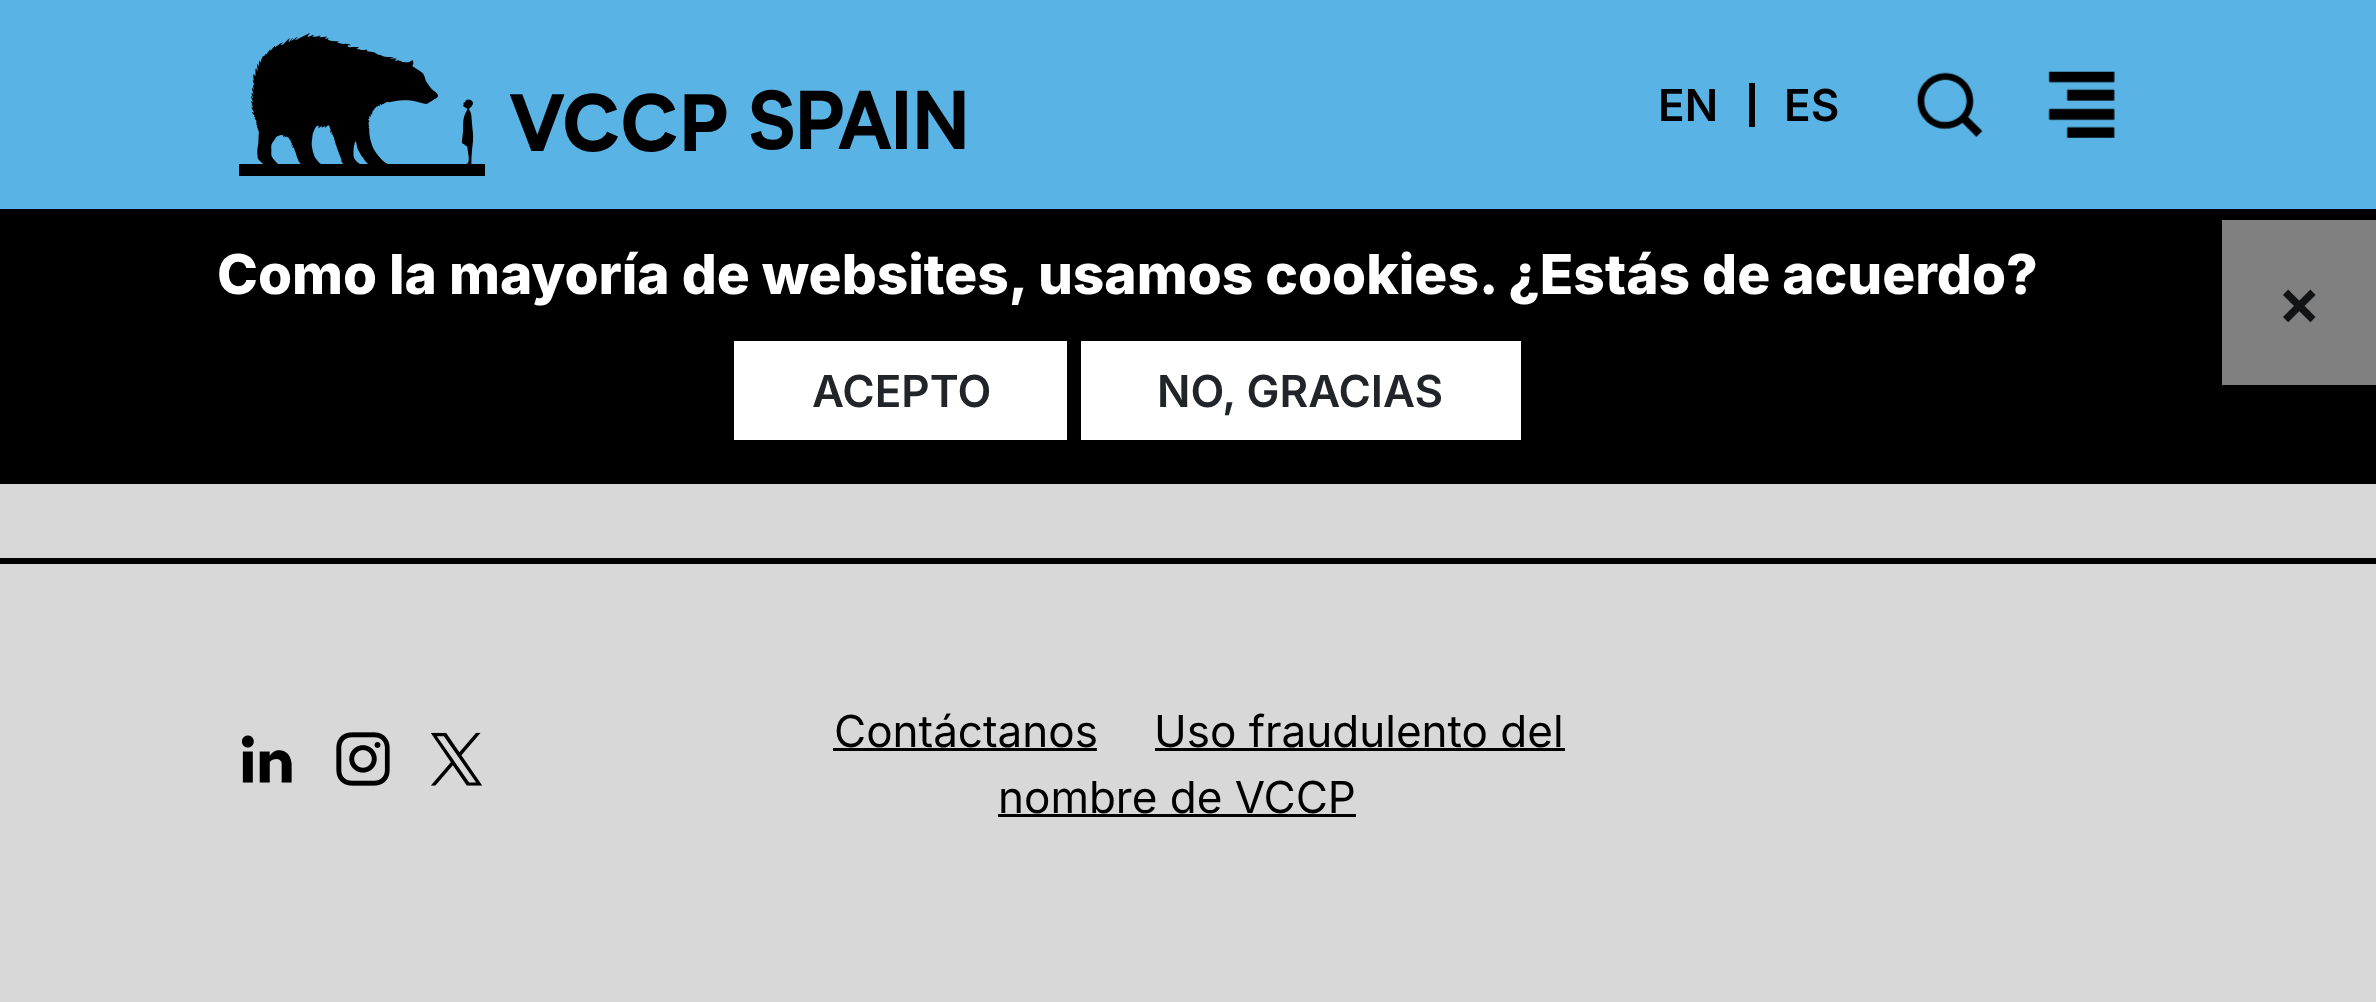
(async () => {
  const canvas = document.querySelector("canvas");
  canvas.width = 2376;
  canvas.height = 1002;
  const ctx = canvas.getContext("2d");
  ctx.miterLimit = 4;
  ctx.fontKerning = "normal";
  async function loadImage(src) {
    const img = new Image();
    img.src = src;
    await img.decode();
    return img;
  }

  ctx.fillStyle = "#d8d8d8";
  ctx.fillRect(0, 0, 2376, 1002);
  ctx.fillStyle = "#59b3e4";
  ctx.fillRect(0, 0, 2376, 209);
  ctx.drawImage(await loadImage("img/1.png"), 239, 33, 246, 143);
  ctx.fillStyle = "#000000";
  ctx.fillRect(1749, 83, 6, 44);
  ctx.drawImage(await loadImage("img/2.png"), 1916, 72, 67, 65);
  ctx.drawImage(await loadImage("img/3.png"), 2048, 71, 67, 67);
  for (const [x, y, w, h, color] of [
    [0, 209, 2376, 275, "#000000"],
    [2222, 220, 154, 165, "#808080"],
    [734, 341, 333, 99, "#ffffff"],
    [1081, 341, 440, 99, "#ffffff"],
    [0, 558, 2376, 6, "#000000"],
  ]) {
    ctx.fillStyle = color;
    ctx.fillRect(x, y, w, h);
  }
  ctx.drawImage(await loadImage("img/4.png"), 241, 735, 51, 48);
  ctx.drawImage(await loadImage("img/5.png"), 336, 732, 54, 54);
  ctx.drawImage(await loadImage("img/6.png"), 431, 732, 51, 54);
  for (const [x, y, w, h, color] of [
    [833, 748, 264, 3, "#000000"],
    [1155, 748, 410, 3, "#000000"],
    [998, 814, 358, 3, "#000000"],
  ]) {
    ctx.fillStyle = color;
    ctx.fillRect(x, y, w, h);
  }
  ctx.font = "800 77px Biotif";
  ctx.fillText("VCCP", 509, 151);
  ctx.font = "bold 77px Biotif";
  ctx.fillText("SPAIN", 748, 149);
  ctx.font = "600 44px Inter";
  ctx.fillText("EN", 1658, 121);
  ctx.fillText("ES", 1784, 121);
  ctx.font = "800 55px Inter";
  ctx.fillStyle = "#ffffff";
  ctx.fillText("Como la mayoría de websites, usamos cookies. ¿Estás de acuerdo?", 217, 294);
  ctx.font = "600 66px Inter";
  ctx.fillStyle = "#111315";
  ctx.fillText("×", 2277, 325);
  ctx.font = "600 44px Inter";
  ctx.fillStyle = "#212529";
  ctx.fillText("ACEPTO", 812, 407);
  ctx.fillText("NO, GRACIAS", 1157, 407);
  ctx.font = "44px Inter";
  ctx.fillStyle = "#000000";
  for (const [text, x, y] of [
    ["Contáctanos", 834, 747],
    ["Uso fraudulento del", 1154, 747],
    ["nombre de VCCP", 998, 813],
  ]) {
    ctx.fillText(text, x, y);
  }
})();
